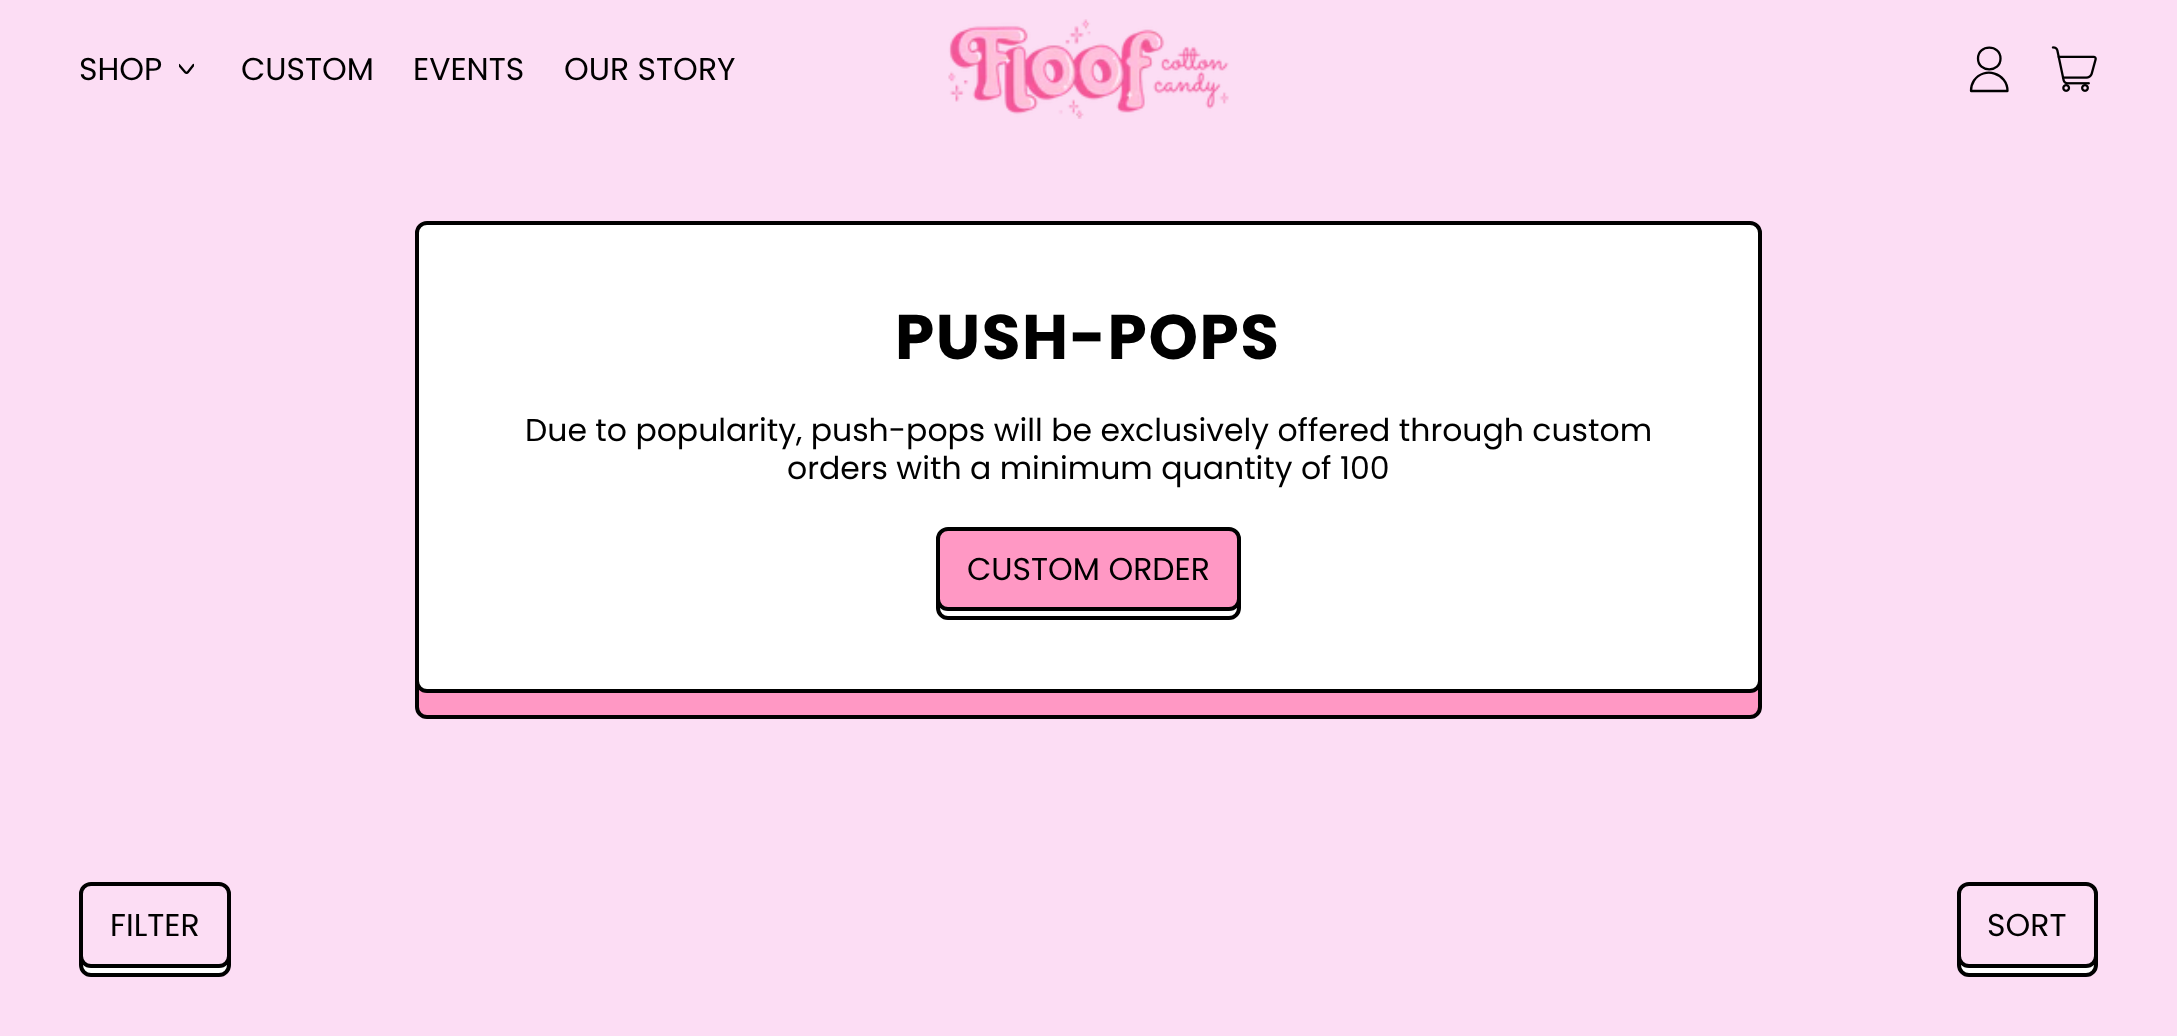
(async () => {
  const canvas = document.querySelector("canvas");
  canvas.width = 2177;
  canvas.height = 1036;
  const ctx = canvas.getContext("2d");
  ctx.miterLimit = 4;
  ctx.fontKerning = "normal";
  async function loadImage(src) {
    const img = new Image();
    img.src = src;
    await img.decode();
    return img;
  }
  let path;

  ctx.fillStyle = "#fcddf4";
  ctx.fillRect(0, 0, 2177, 1036);
  ctx.save();
  ctx.beginPath();
  ctx.rect(179, 61, 15, 16);
  ctx.clip();
  path = new Path2D("M179 65L185 72C186.5 73.5 186 73.5 188 72L193.5 65");
  ctx.strokeStyle = "#000000";
  ctx.lineWidth = 2.3;
  ctx.lineCap = "round";
  ctx.lineJoin = "round";
  ctx.stroke(path);
  ctx.restore();
  ctx.drawImage(await loadImage("img/1.png"), 948, 19, 281, 100);
  path = new Path2D("M1978 58.5C1978 73 2000.5 73 2000.5 58.5C2000.5 44 1978 44 1978 58.5ZM1971 91C1971 87 1972 83.5 1974 80.5C1984 66 2007.5 73 2007.5 91Z");
  ctx.strokeStyle = "#000000";
  ctx.lineWidth = 2.3;
  ctx.lineCap = "round";
  ctx.lineJoin = "round";
  ctx.stroke(path);
  ctx.drawImage(await loadImage("img/2.png"), 2051, 46, 46, 46);
  ctx.fillStyle = "#ff98c4";
  ctx.beginPath();
  ctx.roundRect(417, 249, 1343, 468, 10);
  ctx.fill();
  ctx.lineWidth = 4;
  ctx.lineJoin = "miter";
  ctx.stroke();
  ctx.fillStyle = "#ffffff";
  ctx.beginPath();
  ctx.roundRect(417, 223, 1343, 468, 10);
  ctx.fill();
  ctx.stroke();
  ctx.beginPath();
  ctx.roundRect(938, 538, 301, 80, 10);
  ctx.stroke();
  ctx.fillStyle = "#ff98c4";
  ctx.beginPath();
  ctx.roundRect(938, 529, 301, 80, 10);
  ctx.fill();
  ctx.stroke();
  ctx.fillStyle = "#ffffff";
  ctx.beginPath();
  ctx.roundRect(81, 893, 148, 82, 10);
  ctx.fill();
  ctx.stroke();
  ctx.fillStyle = "#fcddf4";
  ctx.beginPath();
  ctx.roundRect(81, 884, 148, 82, 10);
  ctx.fill();
  ctx.stroke();
  ctx.fillStyle = "#ffffff";
  ctx.beginPath();
  ctx.roundRect(1959, 893, 137, 82, 10);
  ctx.fill();
  ctx.stroke();
  ctx.fillStyle = "#fcddf4";
  ctx.beginPath();
  ctx.roundRect(1959, 884, 137, 82, 10);
  ctx.fill();
  ctx.stroke();
  ctx.font = "31.5px Poppins";
  ctx.fillStyle = "#000000";
  for (const [text, x, y] of [
    ["SHOP", 79, 80],
    ["CUSTOM", 241, 80],
    ["EVENTS", 413, 80],
    ["OUR STORY", 564, 80],
  ]) {
    ctx.fillText(text, x, y);
  }
  ctx.letterSpacing = "1.5px";
  ctx.font = "bold 63px Poppins";
  ctx.fillText("PUSH-POPS", 895, 359);
  ctx.letterSpacing = "0px";
  ctx.font = "31.5px Poppins";
  for (const [text, x, y] of [
    ["Due to popularity, push-pops will be exclusively offered through custom", 525, 441],
    ["orders with a minimum quantity of 100", 787, 479],
    ["CUSTOM ORDER", 967, 580],
    ["FILTER", 110, 936],
    ["SORT", 1987, 936],
  ]) {
    ctx.fillText(text, x, y);
  }
})();
